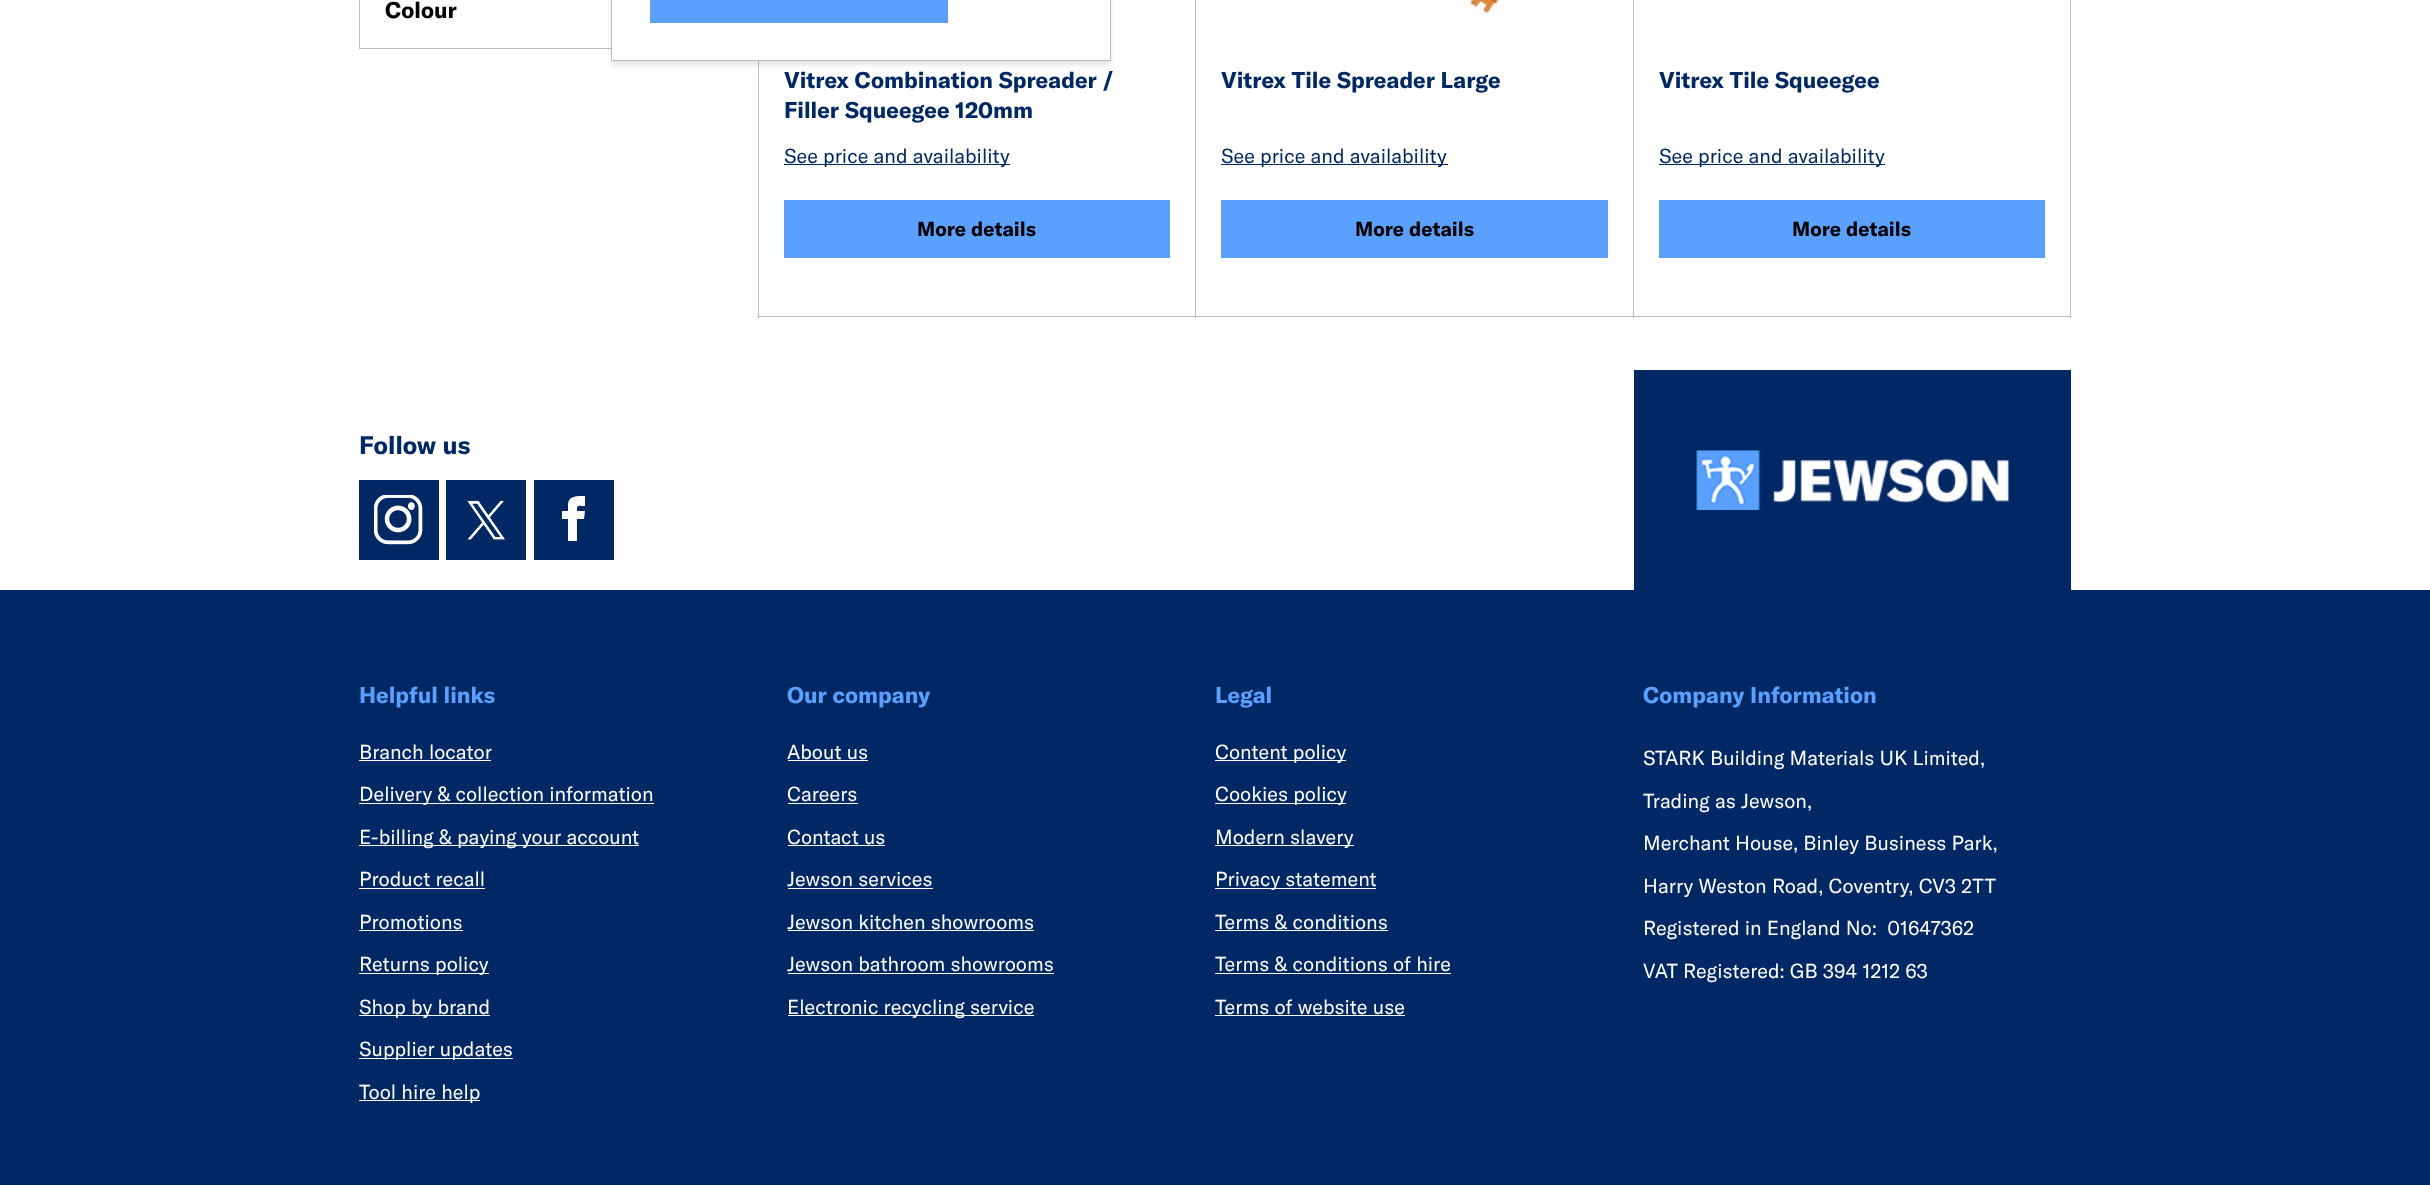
(async () => {
  const canvas = document.querySelector("canvas");
  canvas.width = 2430;
  canvas.height = 1185;
  const ctx = canvas.getContext("2d");
  ctx.miterLimit = 4;
  ctx.fontKerning = "normal";
  async function loadImage(src) {
    const img = new Image();
    img.src = src;
    await img.decode();
    return img;
  }
  let path;

  ctx.fillStyle = "#ffffff";
  ctx.fillRect(0, 0, 2430, 1185);
  ctx.strokeStyle = "#bdbcbc";
  ctx.strokeRect(359.5, -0.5, 399, 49);
  ctx.fillStyle = "#bdbcbc";
  ctx.fillRect(758, 61, 1, 257);
  ctx.fillStyle = "rgba(0, 0, 0, 0.1)";
  ctx.filter = "blur(2.5px)";
  ctx.beginPath();
  ctx.rect(611, -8, 500, 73);
  ctx.fill();
  ctx.filter = "none";
  ctx.fillStyle = "#ffffff";
  ctx.beginPath();
  ctx.rect(611.5, -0.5, 499, 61);
  ctx.fill();
  ctx.stroke();
  for (const [x, y, w, h, color] of [
    [650, 0, 298, 23, "#5aa0ff"],
    [1195, 0, 1, 318, "#bdbcbc"],
    [759, 316, 437, 1, "#bdbcbc"],
    [784, 164, 226, 1, "#002864"],
    [784, 200, 386, 58, "#5aa0ff"],
    [1633, 0, 1, 318, "#bdbcbc"],
    [1196, 316, 438, 1, "#bdbcbc"],
  ]) {
    ctx.fillStyle = color;
    ctx.fillRect(x, y, w, h);
  }
  ctx.drawImage(await loadImage("img/1.png"), 1290, 0, 250, 45);
  for (const [x, y, w, h, color] of [
    [1221, 164, 227, 1, "#002864"],
    [1221, 200, 387, 58, "#5aa0ff"],
    [2070, 0, 1, 318, "#bdbcbc"],
    [1634, 316, 437, 1, "#bdbcbc"],
    [1659, 164, 226, 1, "#002864"],
    [1659, 200, 386, 58, "#5aa0ff"],
    [359, 480, 80, 80, "#002864"],
  ]) {
    ctx.fillStyle = color;
    ctx.fillRect(x, y, w, h);
  }
  ctx.drawImage(await loadImage("img/2.png"), 374, 495, 49, 50);
  ctx.fillRect(446, 480, 80, 80);
  ctx.drawImage(await loadImage("img/3.png"), 467, 500, 38, 40);
  ctx.fillRect(534, 480, 80, 80);
  ctx.fillStyle = "#ffffff";
  path = new Path2D("M568 511H562V519H568V541H577V519H584L585 511H577C577 504 578 506 585 506V496C578 496 568 495 568 505Z");
  ctx.fill(path);
  ctx.fillStyle = "#002864";
  ctx.fillRect(1634, 370, 437, 220);
  ctx.drawImage(await loadImage("img/4.png"), 1696, 450, 313, 60);
  for (const [x, y, w, h, color] of [
    [0, 590, 2430, 595, "#002864"],
    [359, 760, 132, 1, "#ffffff"],
    [359, 803, 295, 1, "#ffffff"],
    [359, 845, 280, 1, "#ffffff"],
    [359, 888, 126, 1, "#ffffff"],
    [359, 930, 104, 1, "#ffffff"],
    [359, 973, 130, 1, "#ffffff"],
    [359, 1015, 131, 1, "#ffffff"],
    [359, 1058, 154, 1, "#ffffff"],
    [359, 1100, 121, 1, "#ffffff"],
    [788, 760, 80, 1, "#ffffff"],
    [788, 803, 70, 1, "#ffffff"],
    [788, 845, 97, 1, "#ffffff"],
    [788, 888, 145, 1, "#ffffff"],
    [788, 930, 246, 1, "#ffffff"],
    [788, 973, 266, 1, "#ffffff"],
    [788, 1015, 246, 1, "#ffffff"],
    [1215, 760, 131, 1, "#ffffff"],
    [1215, 803, 131, 1, "#ffffff"],
    [1215, 845, 139, 1, "#ffffff"],
    [1215, 888, 161, 1, "#ffffff"],
    [1215, 930, 173, 1, "#ffffff"],
    [1215, 973, 236, 1, "#ffffff"],
    [1215, 1015, 190, 1, "#ffffff"],
  ]) {
    ctx.fillStyle = color;
    ctx.fillRect(x, y, w, h);
  }
  ctx.font = "bold 22.5px GT America";
  ctx.fillStyle = "#000000";
  ctx.fillText("Colour", 385, 18);
  ctx.fillStyle = "#002864";
  ctx.fillText("Vitrex Combination Spreader /", 784, 88);
  ctx.fillText("Filler Squeegee 120mm", 784, 118);
  ctx.font = "20px GT America";
  ctx.fillText("See price and availability", 784, 163);
  ctx.font = "bold 20px GT America";
  ctx.fillStyle = "#000000";
  ctx.fillText("More details", 917, 236);
  ctx.font = "bold 22.5px GT America";
  ctx.fillStyle = "#002864";
  ctx.fillText("Vitrex Tile Spreader Large", 1221, 88);
  ctx.font = "20px GT America";
  ctx.fillText("See price and availability", 1221, 163);
  ctx.font = "bold 20px GT America";
  ctx.fillStyle = "#000000";
  ctx.fillText("More details", 1355, 236);
  ctx.font = "bold 22.5px GT America";
  ctx.fillStyle = "#002864";
  ctx.fillText("Vitrex Tile Squeegee", 1659, 88);
  ctx.font = "20px GT America";
  ctx.fillText("See price and availability", 1659, 163);
  ctx.font = "bold 20px GT America";
  ctx.fillStyle = "#000000";
  ctx.fillText("More details", 1792, 236);
  ctx.font = "bold 25px GT America";
  ctx.fillStyle = "#002864";
  ctx.fillText("Follow us", 359, 454);
  ctx.font = "bold 22.5px GT America";
  ctx.fillStyle = "#5aa0ff";
  ctx.fillText("Helpful links", 359, 703);
  ctx.font = "20px GT America";
  ctx.fillStyle = "#ffffff";
  for (const [text, x, y] of [
    ["Branch locator", 359, 759],
    ["Delivery & collection information", 359, 801],
    ["E-billing & paying your account", 359, 844],
    ["Product recall", 359, 886],
    ["Promotions", 359, 929],
    ["Returns policy", 359, 971],
    ["Shop by brand", 359, 1014],
    ["Supplier updates", 359, 1056],
    ["Tool hire help", 359, 1099],
  ]) {
    ctx.fillText(text, x, y);
  }
  ctx.font = "bold 22.5px GT America";
  ctx.fillStyle = "#5aa0ff";
  ctx.fillText("Our company", 787, 703);
  ctx.font = "20px GT America";
  ctx.fillStyle = "#ffffff";
  for (const [text, x, y] of [
    ["About us", 787, 759],
    ["Careers", 787, 801],
    ["Contact us", 787, 844],
    ["Jewson services", 787, 886],
    ["Jewson kitchen showrooms", 787, 929],
    ["Jewson bathroom showrooms", 787, 971],
    ["Electronic recycling service", 787, 1014],
  ]) {
    ctx.fillText(text, x, y);
  }
  ctx.font = "bold 22.5px GT America";
  ctx.fillStyle = "#5aa0ff";
  ctx.fillText("Legal", 1215, 703);
  ctx.font = "20px GT America";
  ctx.fillStyle = "#ffffff";
  for (const [text, x, y] of [
    ["Content policy", 1215, 759],
    ["Cookies policy", 1215, 801],
    ["Modern slavery", 1215, 844],
    ["Privacy statement", 1215, 886],
    ["Terms & conditions", 1215, 929],
    ["Terms & conditions of hire", 1215, 971],
    ["Terms of website use", 1215, 1014],
  ]) {
    ctx.fillText(text, x, y);
  }
  ctx.font = "bold 22.5px GT America";
  ctx.fillStyle = "#5aa0ff";
  ctx.fillText("Company Information", 1643, 703);
  ctx.font = "20px GT America";
  ctx.fillStyle = "#ffffff";
  for (const [text, x, y] of [
    ["STARK Building Materials UK Limited,", 1643, 765],
    ["Trading as Jewson,", 1643, 808],
    ["Merchant House, Binley Business Park,", 1643, 850],
    ["Harry Weston Road, Coventry, CV3 2TT", 1643, 893],
    ["Registered in England No:  01647362", 1643, 935],
    ["VAT Registered: GB 394 1212 63", 1643, 978],
  ]) {
    ctx.fillText(text, x, y);
  }
})();
